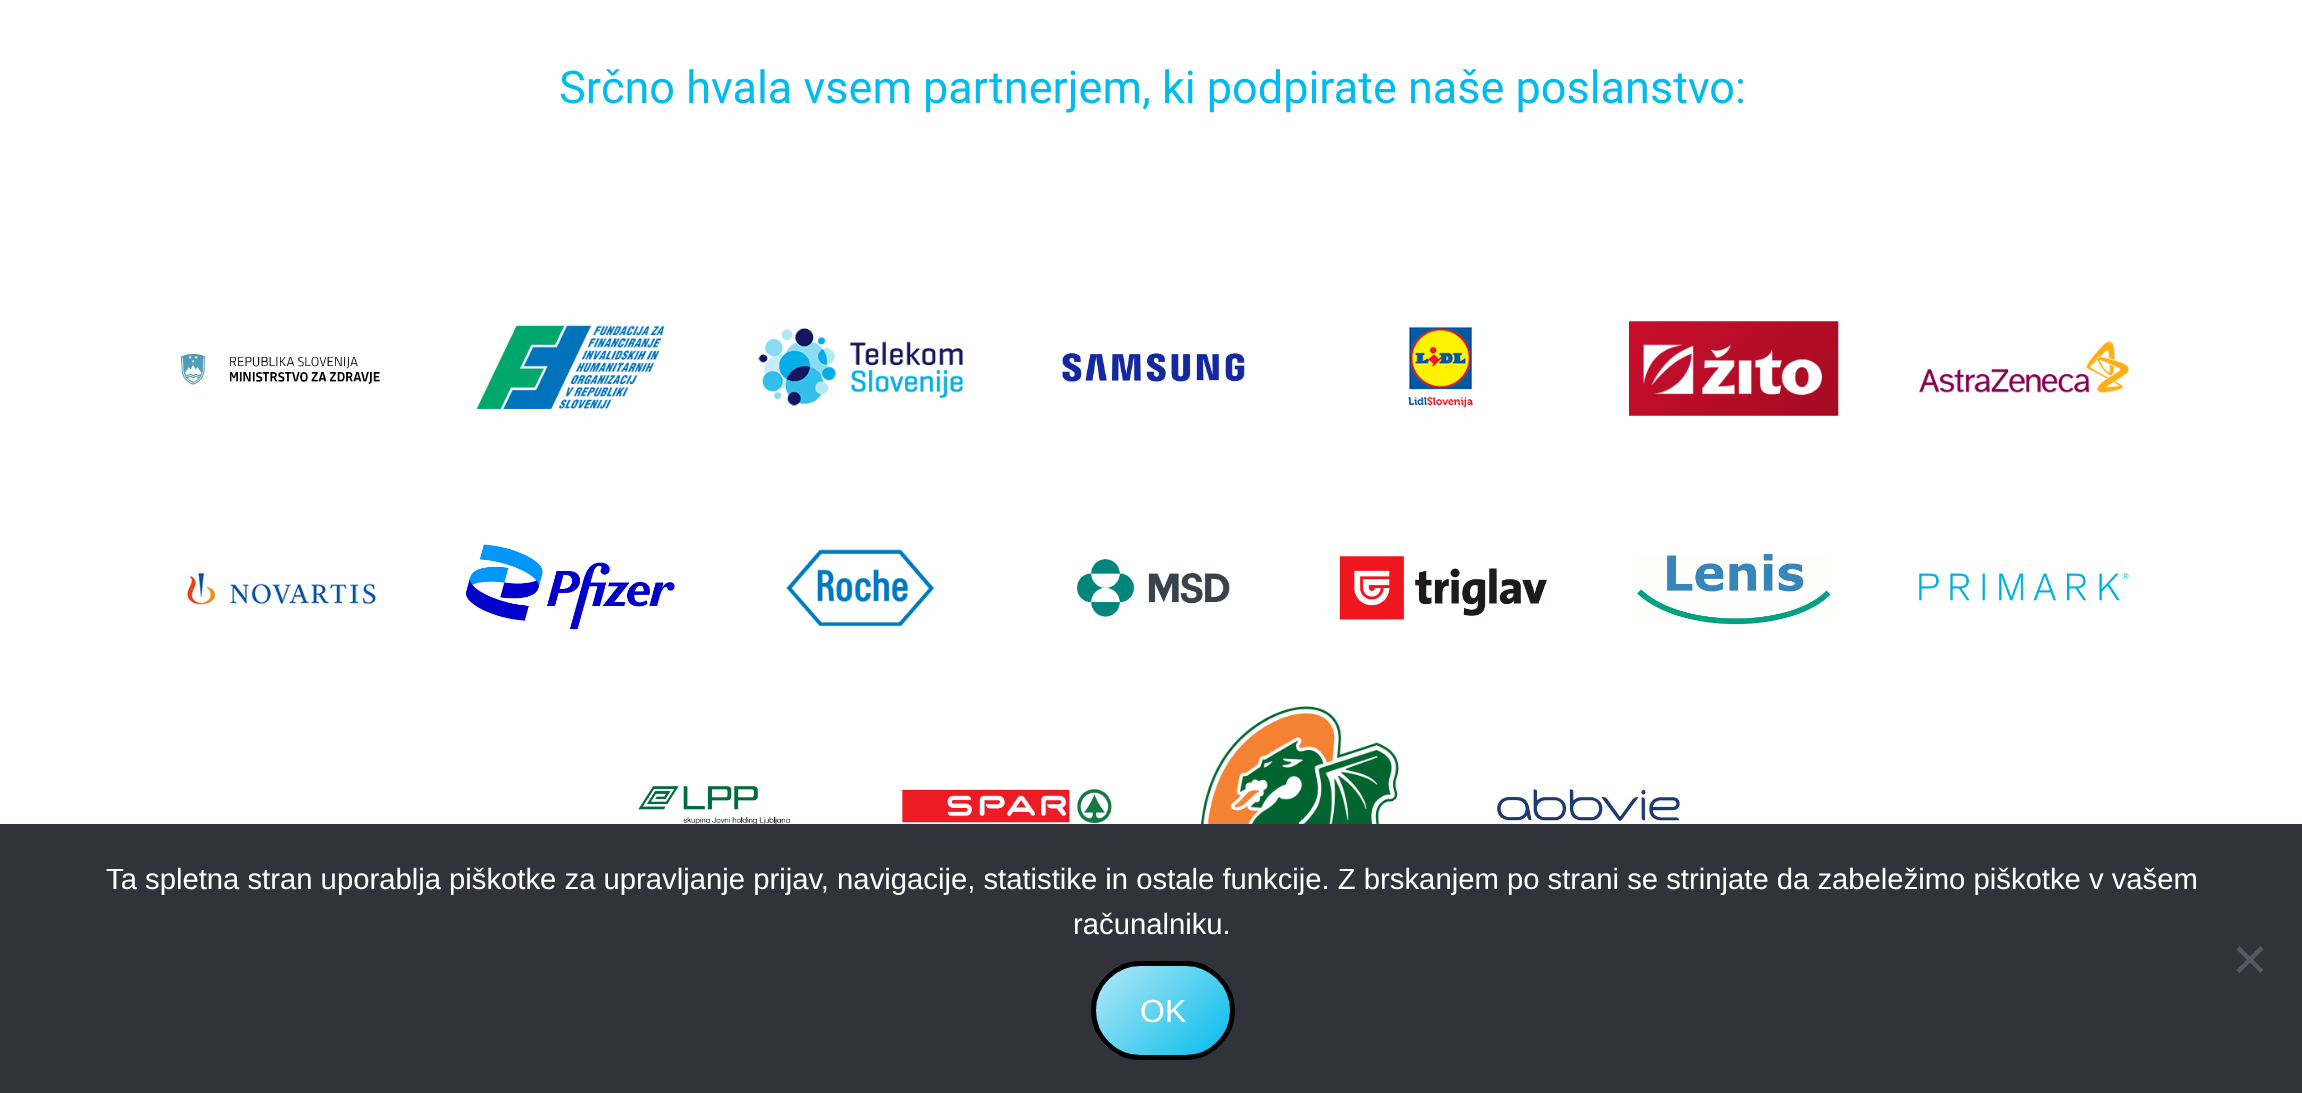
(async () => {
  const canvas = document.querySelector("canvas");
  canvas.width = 2302;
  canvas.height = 1093;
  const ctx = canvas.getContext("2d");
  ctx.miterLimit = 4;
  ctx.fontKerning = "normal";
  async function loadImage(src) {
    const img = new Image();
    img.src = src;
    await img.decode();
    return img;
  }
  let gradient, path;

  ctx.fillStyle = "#ffffff";
  ctx.fillRect(0, 0, 2302, 1093);
  ctx.drawImage(await loadImage("img/1.png"), 180, 353, 200, 34);
  ctx.drawImage(await loadImage("img/2.png"), 476, 325, 189, 84);
  ctx.drawImage(await loadImage("img/3.png"), 758, 328, 205, 78);
  ctx.drawImage(await loadImage("img/4.png"), 1062, 353, 183, 29);
  ctx.drawImage(await loadImage("img/5.png"), 1408, 326, 66, 82);
  ctx.drawImage(await loadImage("img/6.png"), 1629, 321, 210, 95);
  ctx.drawImage(await loadImage("img/7.png"), 1919, 341, 210, 52);
  ctx.drawImage(await loadImage("img/8.png"), 187, 573, 189, 32);
  ctx.drawImage(await loadImage("img/9.png"), 465, 544, 210, 86);
  ctx.drawImage(await loadImage("img/10.png"), 786, 549, 149, 78);
  ctx.drawImage(await loadImage("img/11.png"), 1077, 559, 153, 58);
  ctx.drawImage(await loadImage("img/12.png"), 1339, 556, 208, 64);
  ctx.drawImage(await loadImage("img/13.png"), 1636, 554, 195, 71);
  ctx.drawImage(await loadImage("img/14.png"), 1919, 573, 210, 28);
  ctx.drawImage(await loadImage("img/15.png"), 638, 785, 152, 39);
  ctx.drawImage(await loadImage("img/16.png"), 902, 789, 210, 34);
  ctx.drawImage(await loadImage("img/17.png"), 1201, 706, 198, 118);
  ctx.drawImage(await loadImage("img/18.png"), 1495, 788, 185, 35);
  ctx.fillStyle = "#32323a";
  ctx.fillRect(0, 824, 2302, 269);
  ctx.fillStyle = "#59595d";
  path = new Path2D("M2260.5 946L2263.5 949.5L2239.5 973L2236.5 970Z");
  ctx.fill(path);
  path = new Path2D("M2236.5 949.5L2239.5 946L2263.5 970L2260.5 973Z");
  ctx.fill(path);
  ctx.save();
  ctx.beginPath();
  ctx.roundRect(1091, 961, 144, 99, 49.5);
  ctx.clip();
  gradient = ctx.createLinearGradient(1107, 954, 1220, 1067);
  gradient.addColorStop(0, "#b6e9f6");
  gradient.addColorStop(1, "#00bbec");
  ctx.fillStyle = gradient;
  ctx.fillRect(1096, 965, 135, 90);
  ctx.restore();
  ctx.beginPath();
  ctx.roundRect(1093.5, 963.5, 139, 94, 47);
  ctx.strokeStyle = "#000000";
  ctx.lineWidth = 5;
  ctx.stroke();
  ctx.font = "45px Roboto";
  ctx.fillStyle = "#00bbec";
  ctx.fillText("Srčno hvala vsem partnerjem, ki podpirate naše poslanstvo:", 559, 103);
  ctx.font = "29.25px Liberation Sans";
  ctx.fillStyle = "#ffffff";
  ctx.fillText("Ta spletna stran uporablja piškotke za upravljanje prijav, navigacije, statistike in ostale funkcije. Z brskanjem po strani se strinjate da zabeležimo piškotke v vašem", 106, 889);
  ctx.fillText("računalniku.", 1073, 934);
  ctx.font = "32px Liberation Sans";
  ctx.fillText("OK", 1140, 1022);
})();
